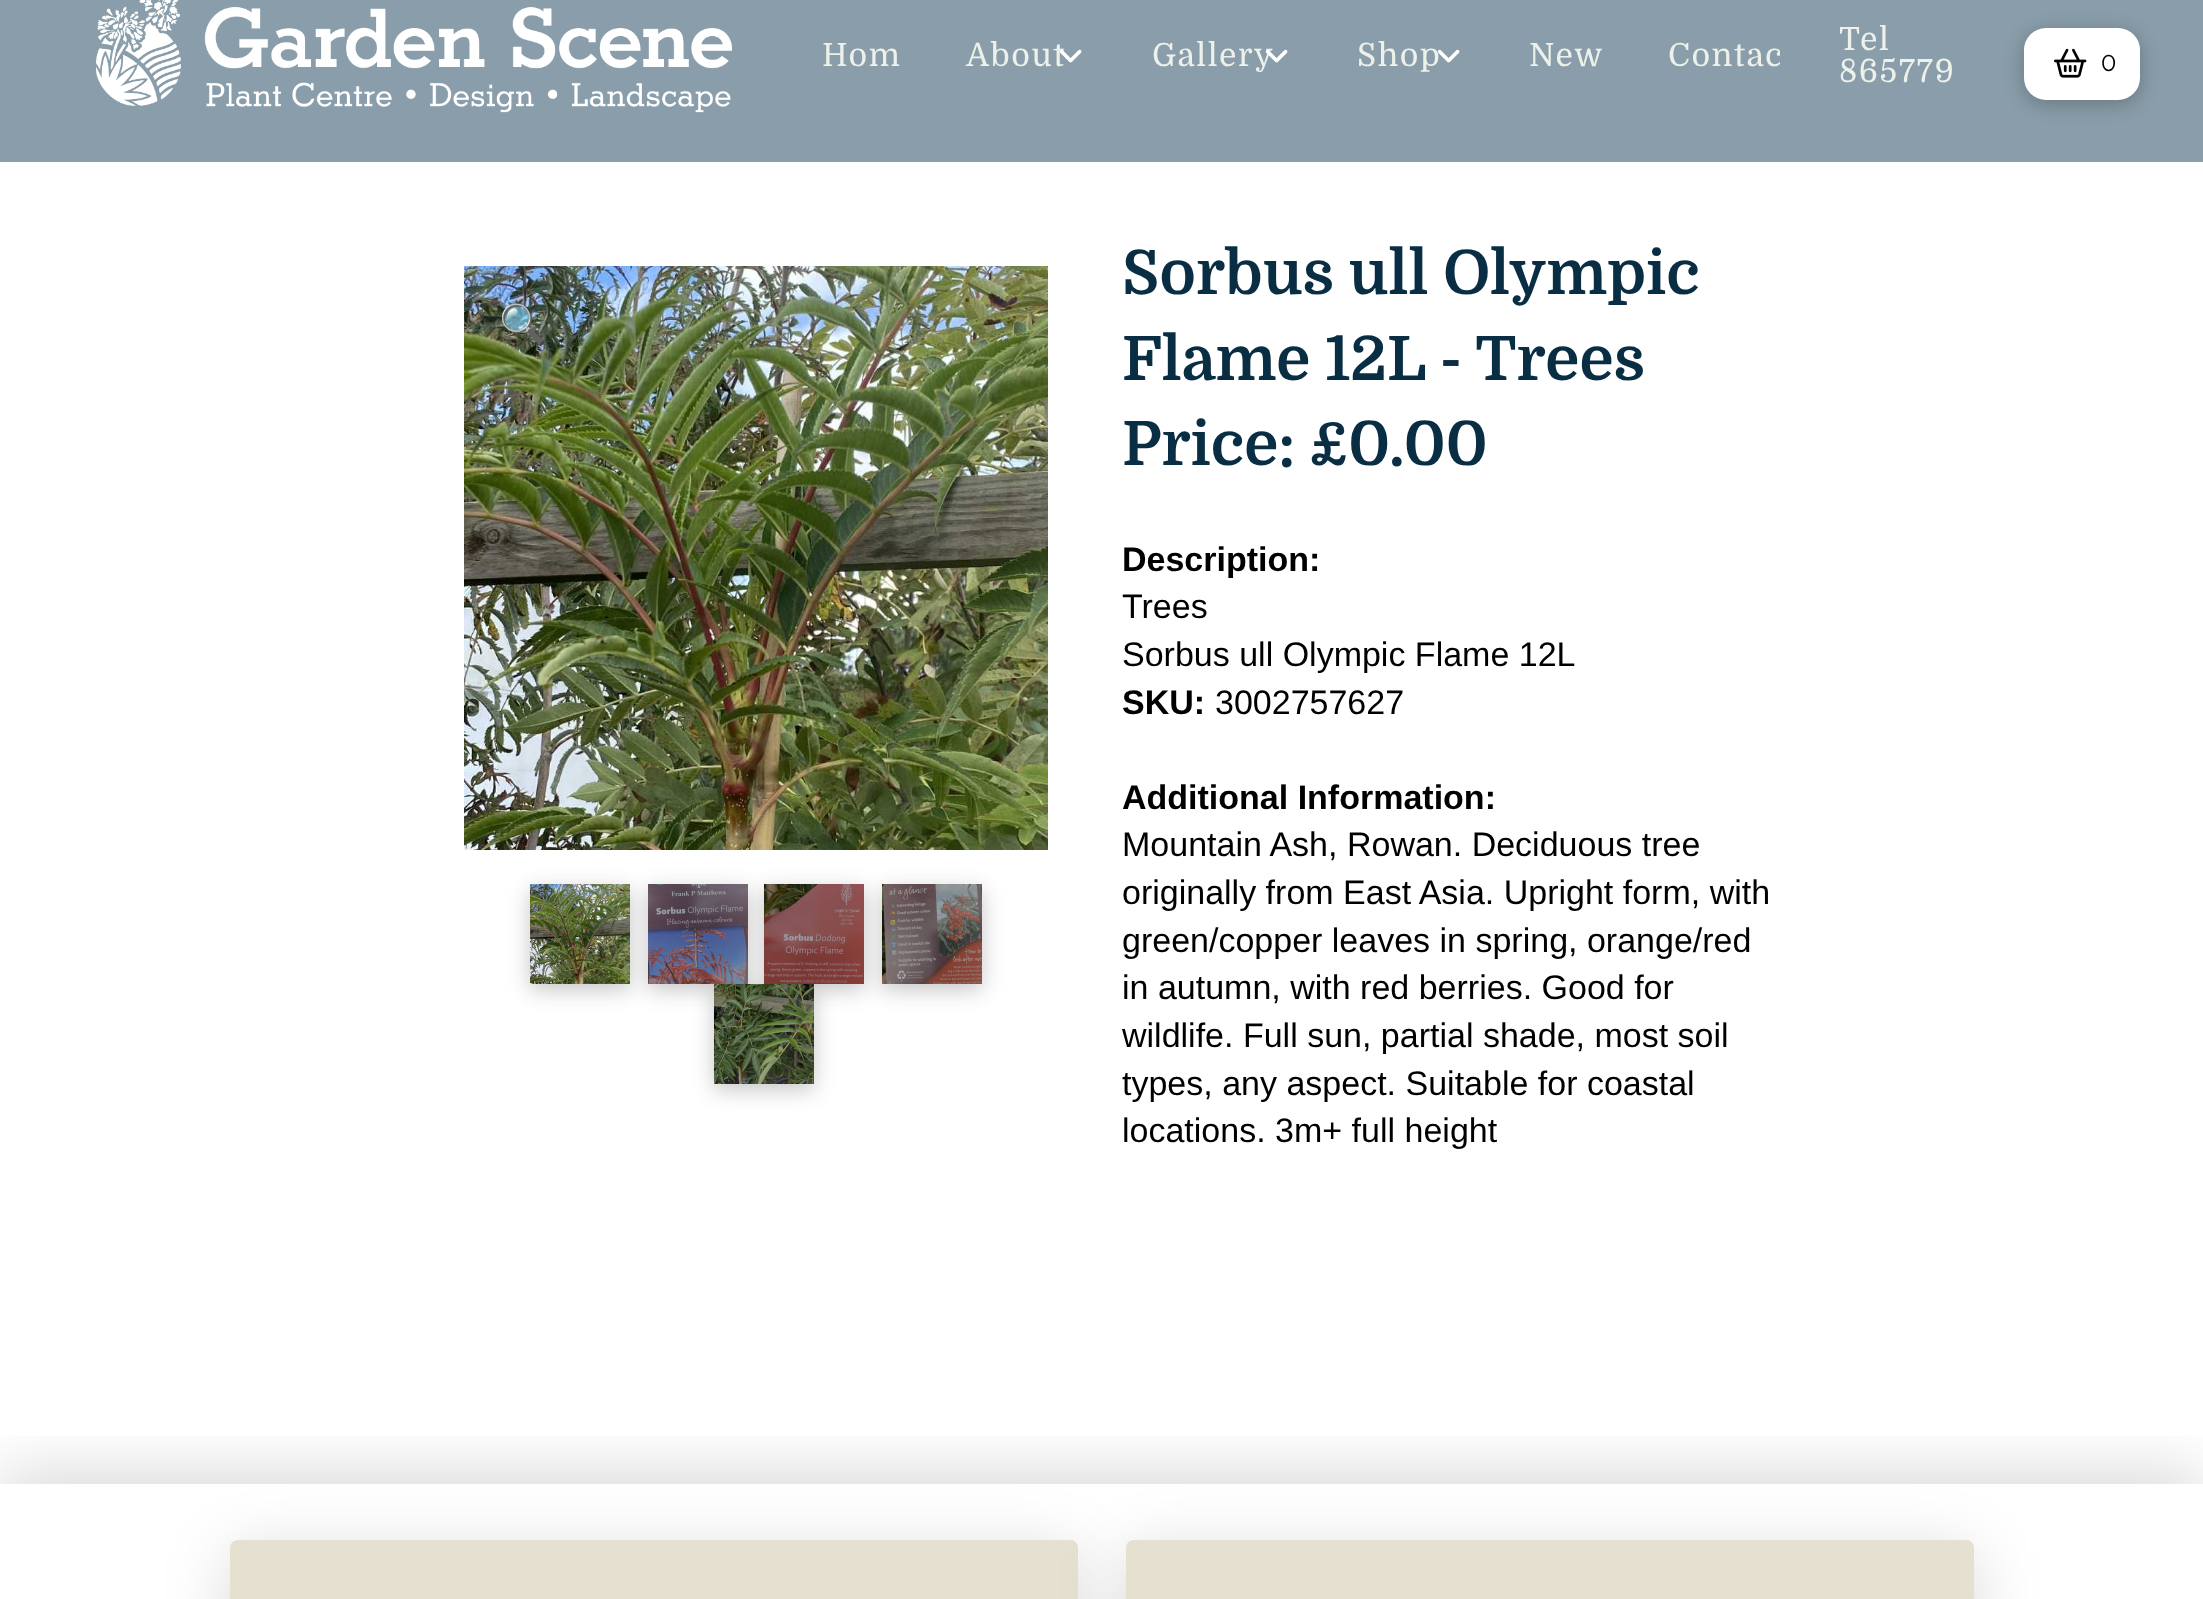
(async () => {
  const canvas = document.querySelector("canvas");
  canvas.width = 2203;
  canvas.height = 1599;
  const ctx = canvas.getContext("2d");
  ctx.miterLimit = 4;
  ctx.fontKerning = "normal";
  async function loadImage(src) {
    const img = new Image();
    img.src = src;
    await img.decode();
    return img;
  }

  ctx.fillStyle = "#ffffff";
  ctx.fillRect(0, 0, 2203, 1599);
  ctx.fillStyle = "#899eaa";
  ctx.fillRect(0, 0, 2203, 162);
  ctx.drawImage(await loadImage("img/1.png"), 96, 0, 637, 113);
  ctx.fillStyle = "rgba(0, 0, 0, 0.25)";
  ctx.filter = "blur(9.5px)";
  ctx.beginPath();
  ctx.roundRect(2024, 32, 116, 72, 22);
  ctx.fill();
  ctx.filter = "none";
  ctx.fillStyle = "#ffffff";
  ctx.beginPath();
  ctx.roundRect(2024, 28, 116, 72, 22);
  ctx.fill();
  ctx.drawImage(await loadImage("img/5.png"), 2054, 48, 33, 30);
  ctx.drawImage(await loadImage("img/6.png"), 464, 266, 584, 584);
  ctx.fillStyle = "rgba(0, 0, 0, 0.22)";
  ctx.filter = "blur(10.5px)";
  ctx.beginPath();
  ctx.rect(530, 890, 100, 100);
  ctx.fill();
  ctx.filter = "none";
  ctx.drawImage(await loadImage("img/7.png"), 530, 884, 100, 100);
  ctx.filter = "blur(10.5px)";
  ctx.beginPath();
  ctx.rect(648, 890, 100, 100);
  ctx.fill();
  ctx.filter = "none";
  ctx.fillStyle = "#000000";
  ctx.fillRect(648, 884, 100, 100);
  ctx.fillStyle = "rgba(0, 0, 0, 0.22)";
  ctx.filter = "blur(10.5px)";
  ctx.beginPath();
  ctx.rect(764, 890, 100, 100);
  ctx.fill();
  ctx.filter = "none";
  ctx.fillStyle = "#000000";
  ctx.fillRect(764, 884, 100, 100);
  ctx.fillStyle = "rgba(0, 0, 0, 0.22)";
  ctx.filter = "blur(10.5px)";
  ctx.beginPath();
  ctx.rect(714, 990, 100, 100);
  ctx.fill();
  ctx.filter = "none";
  ctx.drawImage(await loadImage("img/8.png"), 648, 884, 100, 100);
  ctx.filter = "blur(10.5px)";
  ctx.beginPath();
  ctx.rect(882, 890, 100, 100);
  ctx.fill();
  ctx.filter = "none";
  ctx.drawImage(await loadImage("img/9.png"), 764, 884, 100, 100);
  ctx.fillStyle = "#000000";
  ctx.fillRect(882, 884, 100, 100);
  ctx.drawImage(await loadImage("img/10.png"), 882, 884, 100, 100);
  ctx.fillRect(714, 984, 100, 100);
  ctx.drawImage(await loadImage("img/11.png"), 714, 984, 100, 100);
  ctx.save();
  ctx.beginPath();
  ctx.rect(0, 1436, 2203, 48);
  ctx.clip();
  ctx.fillStyle = "rgba(0, 0, 0, 0.15)";
  ctx.filter = "blur(32px)";
  ctx.beginPath();
  ctx.rect(0, 1472, 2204, 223);
  ctx.fill();
  ctx.filter = "none";
  ctx.restore();
  ctx.fillStyle = "rgba(0, 0, 0, 0.15)";
  ctx.filter = "blur(32px)";
  ctx.beginPath();
  ctx.roundRect(230, 1552, 848, 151, 8);
  ctx.fill();
  ctx.filter = "none";
  ctx.fillStyle = "#e6e0d0";
  ctx.beginPath();
  ctx.roundRect(230, 1540, 848, 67, 8);
  ctx.fill();
  ctx.fillStyle = "rgba(0, 0, 0, 0.15)";
  ctx.filter = "blur(32px)";
  ctx.beginPath();
  ctx.roundRect(1126, 1552, 848, 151, 8);
  ctx.fill();
  ctx.filter = "none";
  ctx.fillStyle = "#e6e0d0";
  ctx.beginPath();
  ctx.roundRect(1126, 1540, 848, 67, 8);
  ctx.fill();
  ctx.letterSpacing = "1.5px";
  ctx.font = "32px Domine";
  ctx.fillStyle = "#edf1e9";
  ctx.fillText("Hom", 822, 66);
  ctx.fillText("About", 966, 66);
  ctx.drawImage(await loadImage("img/2.png"), 1060, 49, 22, 14);
  ctx.fillText("Gallery", 1152, 66);
  ctx.drawImage(await loadImage("img/3.png"), 1265, 49, 23, 14);
  ctx.fillText("Shop", 1357, 66);
  ctx.drawImage(await loadImage("img/4.png"), 1437, 49, 23, 14);
  ctx.fillText("New", 1529, 66);
  ctx.save();
  ctx.beginPath();
  ctx.rect(1658, 30, 122, 52);
  ctx.clip();
  ctx.fillText("Contac", 1668, 66);
  ctx.restore();
  ctx.fillText("Tel", 1839, 50);
  ctx.fillText("865779", 1839, 82);
  ctx.letterSpacing = "0px";
  ctx.font = "23px Montserrat";
  ctx.fillStyle = "#000000";
  ctx.fillText("0", 2101, 71);
  ctx.font = "39px Noto Color Emoji";
  ctx.fillStyle = "#edf1e9";
  ctx.fillText("🔍", 499, 338);
  ctx.font = "bold 61.25px Domine";
  ctx.fillStyle = "#092e44";
  for (const [text, x, y] of [
    ["Sorbus ull Olympic", 1122, 294],
    ["Flame 12L - Trees", 1122, 380],
    ["Price: £0.00", 1122, 465],
  ]) {
    ctx.fillText(text, x, y);
  }
  ctx.font = "bold 34px Liberation Sans";
  ctx.fillStyle = "#000000";
  ctx.fillText("Description:", 1122, 571);
  ctx.font = "34px Liberation Sans";
  ctx.fillText("Trees", 1122, 618);
  ctx.fillText("Sorbus ull Olympic Flame 12L", 1122, 666);
  ctx.font = "bold 34px Liberation Sans";
  ctx.fillText("SKU:", 1122, 714);
  ctx.font = "34px Liberation Sans";
  ctx.fillText("3002757627", 1215, 714);
  ctx.font = "bold 34px Liberation Sans";
  ctx.fillText("Additional Information:", 1122, 809);
  ctx.font = "34px Liberation Sans";
  for (const [text, x, y] of [
    ["Mountain Ash, Rowan. Deciduous tree", 1122, 856],
    ["originally from East Asia. Upright form, with", 1122, 904],
    ["green/copper leaves in spring, orange/red", 1122, 952],
    ["in autumn, with red berries. Good for", 1122, 999],
    ["wildlife. Full sun, partial shade, most soil", 1122, 1047],
    ["types, any aspect. Suitable for coastal", 1122, 1095],
    ["locations. 3m+ full height", 1122, 1142],
  ]) {
    ctx.fillText(text, x, y);
  }
})();
